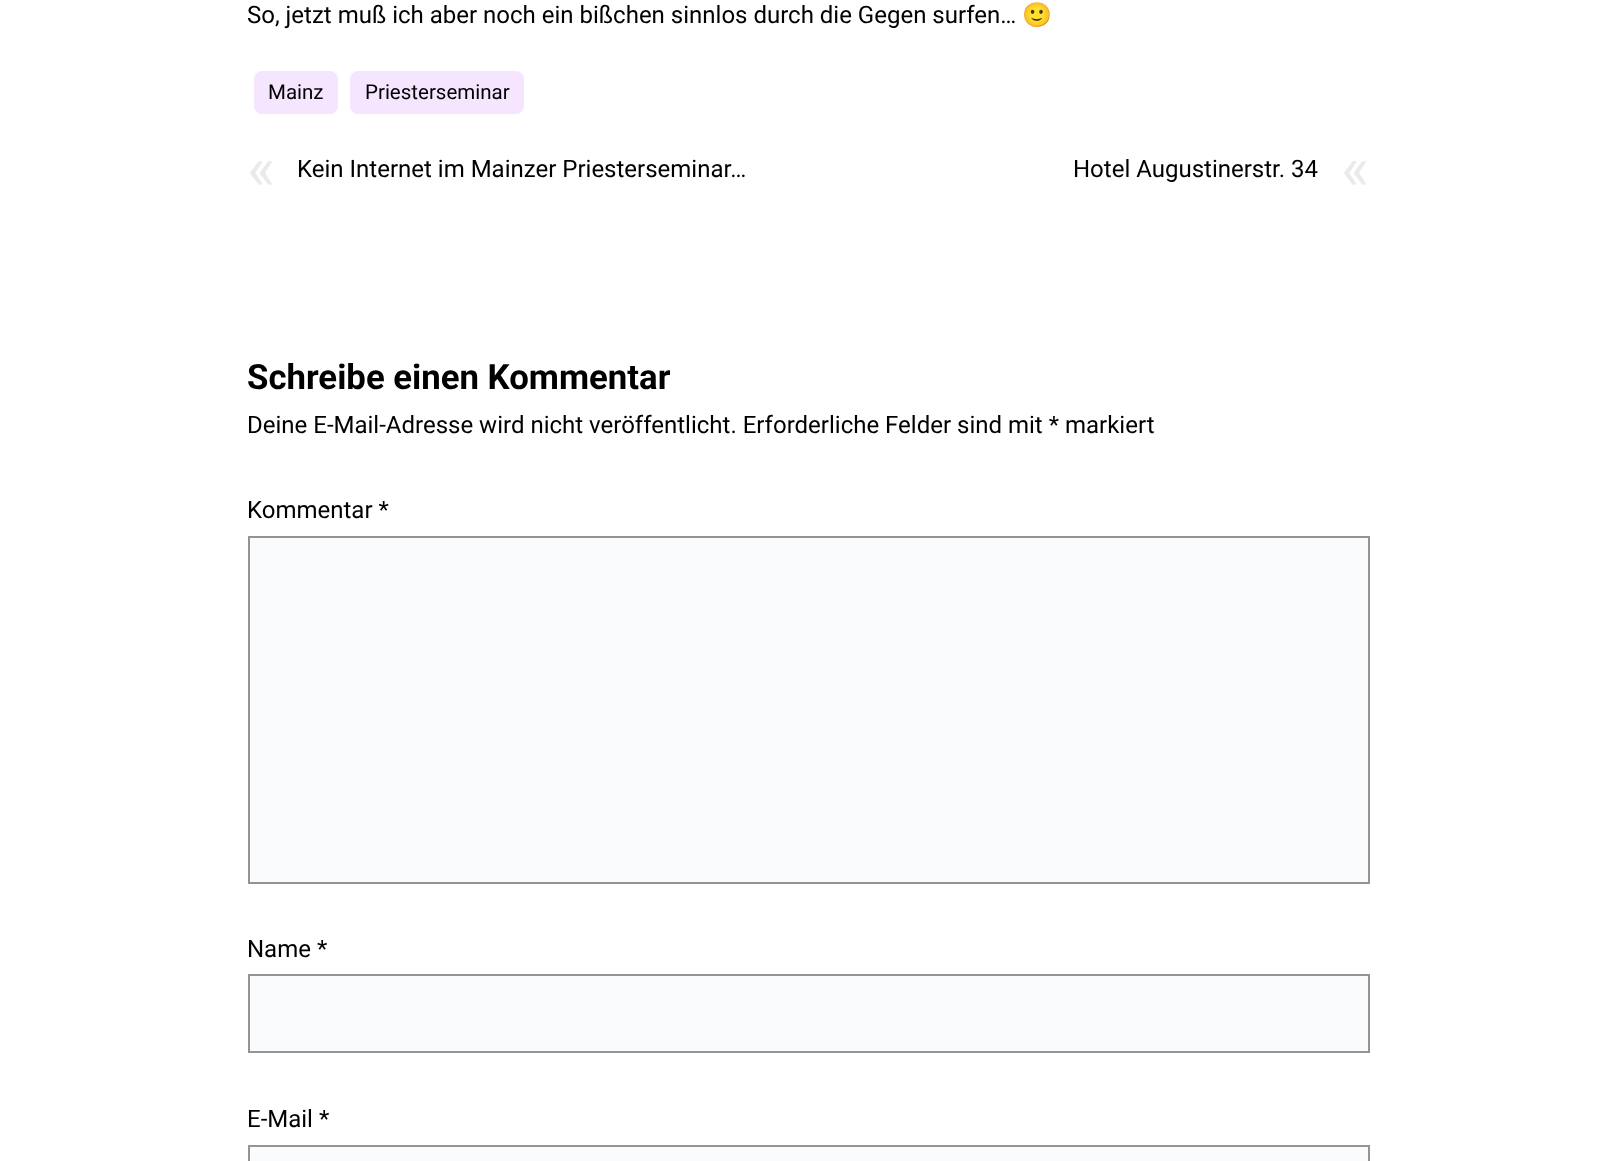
(async () => {
  const canvas = document.querySelector("canvas");
  canvas.width = 1615;
  canvas.height = 1161;
  const ctx = canvas.getContext("2d");
  ctx.miterLimit = 4;
  ctx.fontKerning = "normal";

  ctx.fillStyle = "#ffffff";
  ctx.fillRect(0, 0, 1615, 1161);
  ctx.fillStyle = "#f5e5ff";
  ctx.beginPath();
  ctx.roundRect(254, 71, 84, 43, 8);
  ctx.fill();
  ctx.beginPath();
  ctx.roundRect(350, 71, 174, 43, 8);
  ctx.fill();
  ctx.fillStyle = "#fafbfd";
  ctx.beginPath();
  ctx.rect(249, 537, 1120, 346);
  ctx.fill();
  ctx.strokeStyle = "#949494";
  ctx.lineWidth = 2;
  ctx.stroke();
  ctx.beginPath();
  ctx.rect(249, 975, 1120, 77);
  ctx.fill();
  ctx.stroke();
  ctx.beginPath();
  ctx.rect(249, 1146, 1120, 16);
  ctx.fill();
  ctx.stroke();
  ctx.font = "24px Roboto";
  ctx.fillStyle = "#000000";
  ctx.fillText("So, jetzt muß ich aber noch ein bißchen sinnlos durch die Gegen surfen…", 247, 23);
  ctx.font = "24px Noto Color Emoji";
  ctx.fillText("🙂", 1022, 23);
  ctx.font = "20.5px Roboto";
  ctx.fillText("Mainz", 268, 99);
  ctx.fillText("Priesterseminar", 365, 99);
  ctx.font = "60px Roboto";
  ctx.fillStyle = "#eaeaea";
  ctx.fillText("«", 247, 189);
  ctx.font = "24px Roboto";
  ctx.fillStyle = "#000000";
  ctx.fillText("Kein Internet im Mainzer Priesterseminar…", 297, 177);
  ctx.fillText("Hotel Augustinerstr. 34", 1073, 177);
  ctx.font = "60px Roboto";
  ctx.fillStyle = "#eaeaea";
  ctx.fillText("«", 1341, 189);
  ctx.font = "bold 34.75px Roboto";
  ctx.fillStyle = "#000000";
  ctx.fillText("Schreibe einen Kommentar", 247, 389);
  ctx.font = "24px Roboto";
  for (const [text, x, y] of [
    ["Deine E-Mail-Adresse wird nicht veröffentlicht. Erforderliche Felder sind mit * markiert", 247, 433],
    ["Kommentar *", 247, 518],
    ["Name *", 247, 957],
    ["E-Mail *", 247, 1127],
  ]) {
    ctx.fillText(text, x, y);
  }
})();
